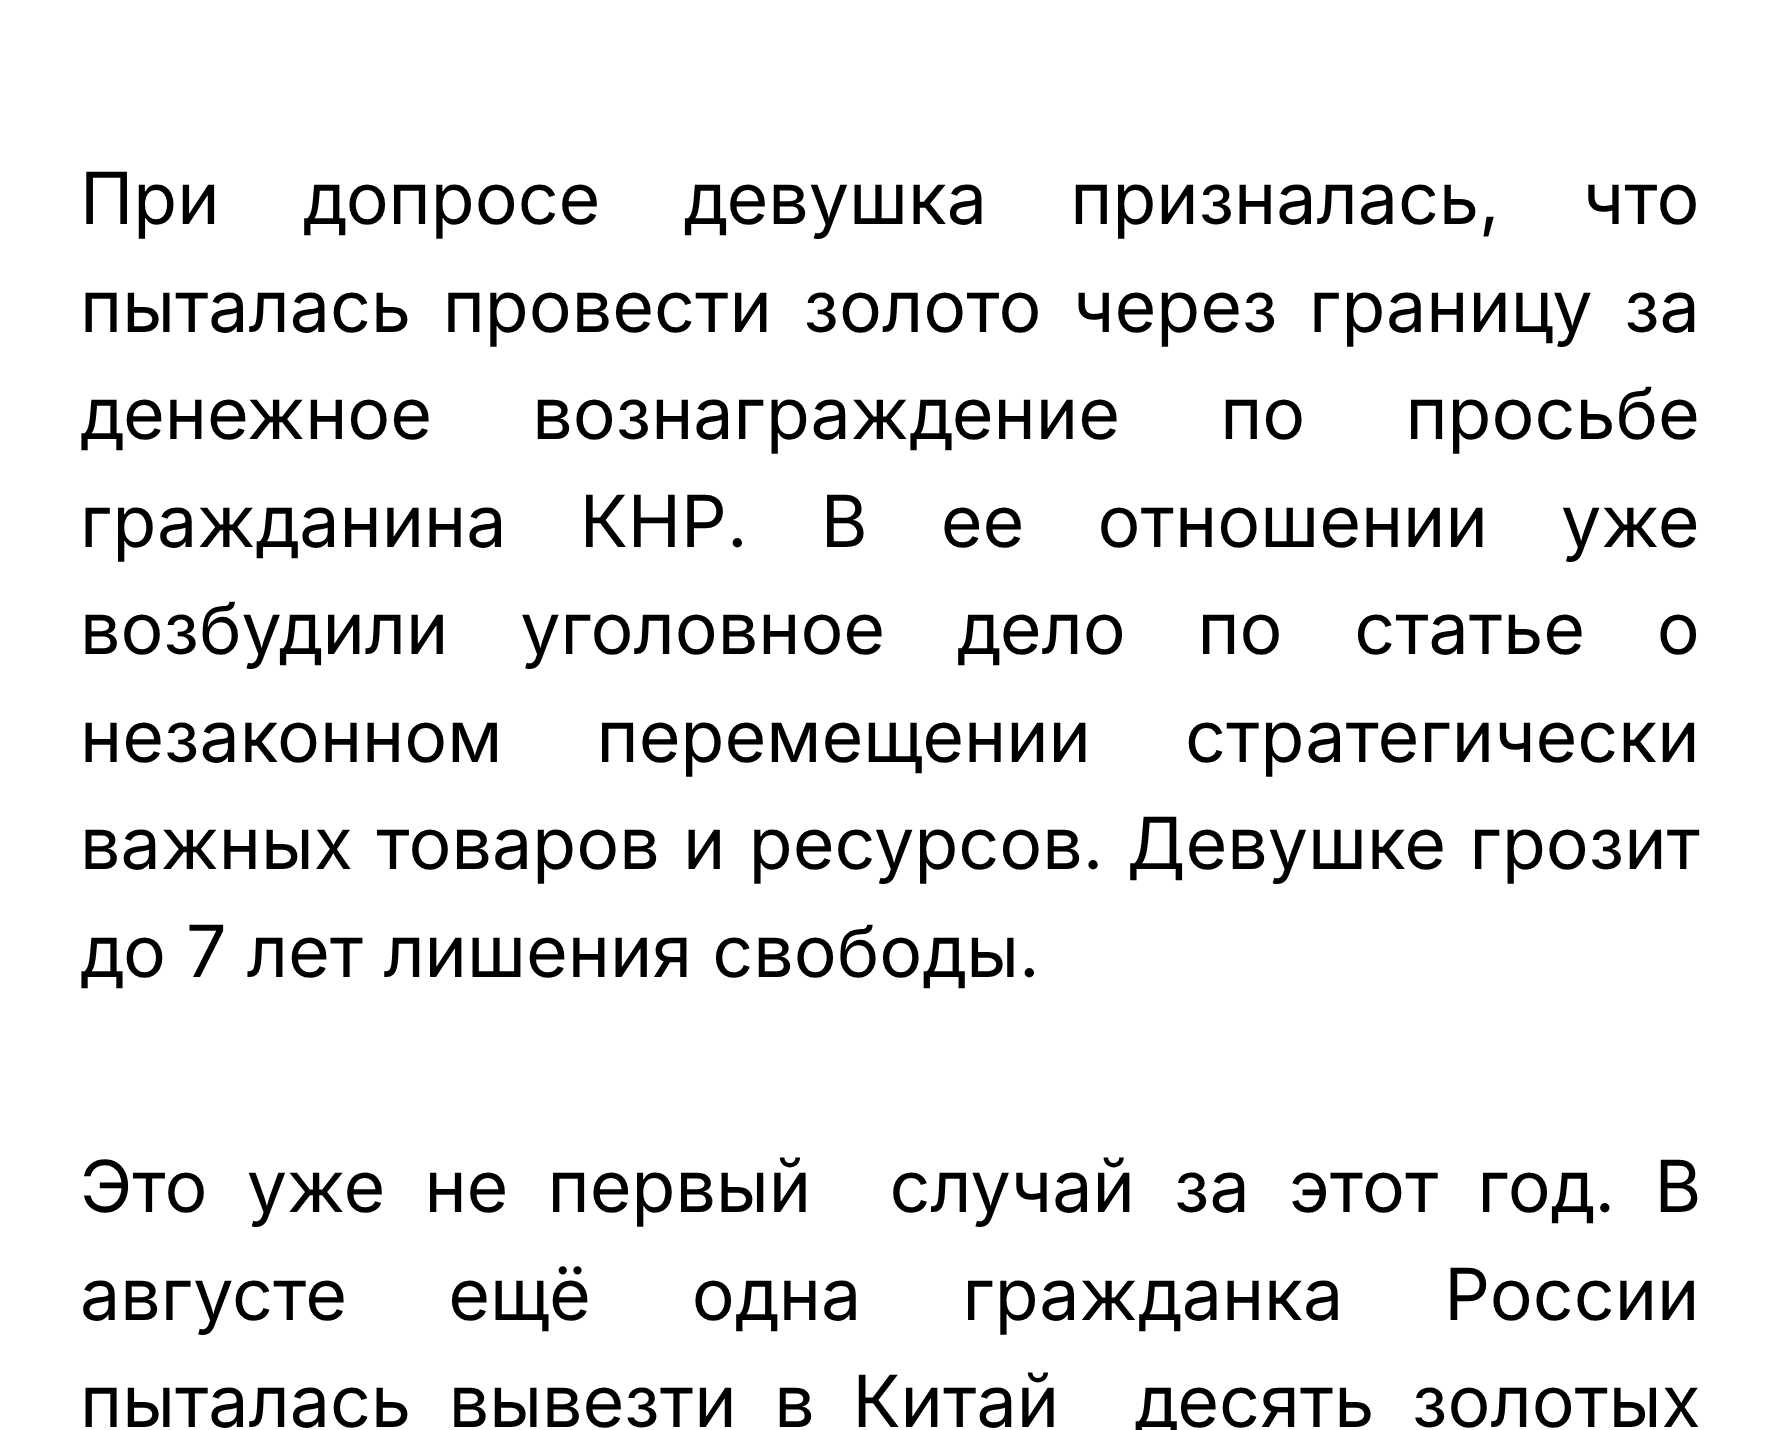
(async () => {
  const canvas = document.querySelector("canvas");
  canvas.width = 1779;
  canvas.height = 1430;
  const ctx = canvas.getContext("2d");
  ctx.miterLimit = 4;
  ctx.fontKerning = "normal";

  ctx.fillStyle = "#ffffff";
  ctx.fillRect(0, 0, 1779, 1430);
  ctx.wordSpacing = "63px";
  ctx.font = "71.7px Inter";
  ctx.fillStyle = "#000000";
  ctx.fillText("При допросе девушка призналась, что", 80, 224);
  ctx.wordSpacing = "11.5px";
  ctx.fillText("пыталась провести золото через границу за", 80, 332);
  ctx.wordSpacing = "80px";
  ctx.fillText("денежное вознаграждение по просьбе", 80, 439);
  ctx.wordSpacing = "53px";
  ctx.fillText("гражданина КНР. В ее отношении уже", 80, 547);
  ctx.wordSpacing = "51.5px";
  ctx.fillText("возбудили уголовное дело по статье о", 80, 654);
  ctx.wordSpacing = "74px";
  ctx.fillText("незаконном перемещении стратегически", 80, 762);
  ctx.wordSpacing = "3.25px";
  ctx.fillText("важных товаров и ресурсов. Девушке грозит", 80, 869);
  ctx.wordSpacing = "0px";
  ctx.fillText("до 7 лет лишения свободы.", 80, 977);
  ctx.wordSpacing = "19px";
  ctx.fillText("Это уже не первый  случай за этот год. В", 80, 1212);
  ctx.wordSpacing = "81px";
  ctx.fillText("августе ещё одна гражданка России", 80, 1320);
  ctx.wordSpacing = "17.5px";
  ctx.fillText("пыталась вывезти в Китай  десять золотых", 80, 1427);
})();
